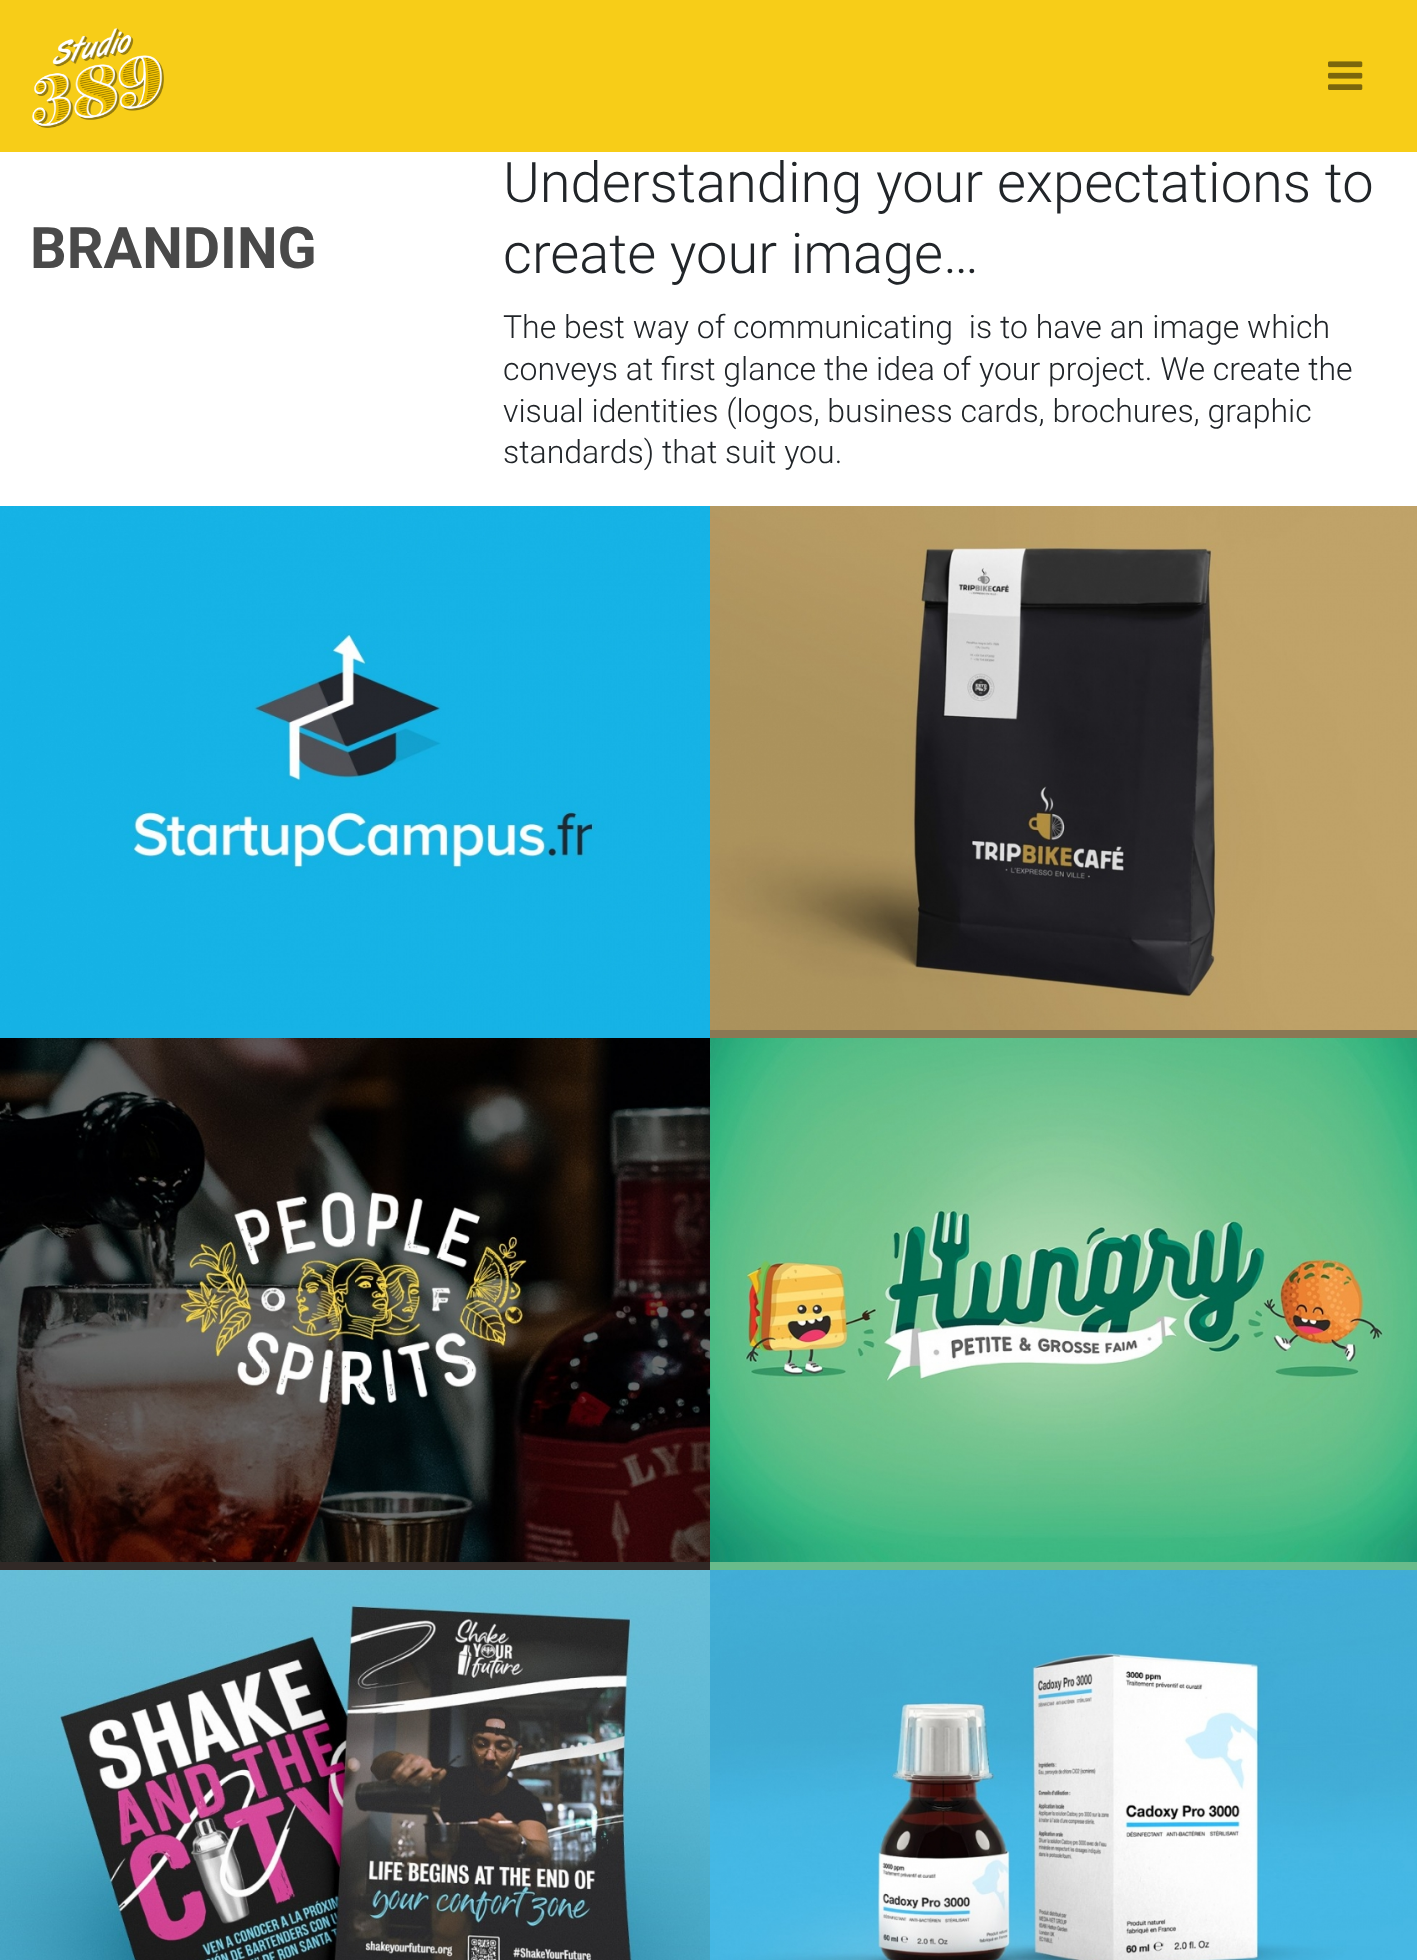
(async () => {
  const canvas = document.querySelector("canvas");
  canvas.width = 1417;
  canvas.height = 1960;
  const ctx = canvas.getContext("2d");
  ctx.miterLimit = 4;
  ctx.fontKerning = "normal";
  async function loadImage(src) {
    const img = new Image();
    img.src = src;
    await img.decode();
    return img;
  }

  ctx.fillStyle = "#ffffff";
  ctx.fillRect(0, 0, 1417, 1960);
  ctx.fillStyle = "#f7cd18";
  ctx.fillRect(0, 0, 1417, 152);
  ctx.drawImage(await loadImage("img/1.png"), 32, 28, 132, 100);
  ctx.drawImage(await loadImage("img/2.png"), 1328, 61, 35, 29);
  ctx.fillStyle = "#1bb1e3";
  ctx.fillRect(0, 1030, 710, 8);
  ctx.drawImage(await loadImage("img/3.png"), 0, 506, 710, 524);
  ctx.fillStyle = "#8a7854";
  ctx.fillRect(710, 1030, 707, 8);
  ctx.drawImage(await loadImage("img/4.png"), 710, 506, 707, 524);
  ctx.fillStyle = "#312926";
  ctx.fillRect(0, 1562, 710, 8);
  ctx.drawImage(await loadImage("img/5.png"), 0, 1038, 710, 524);
  ctx.fillStyle = "#69bb8a";
  ctx.fillRect(710, 1562, 707, 8);
  ctx.drawImage(await loadImage("img/6.png"), 710, 1038, 707, 524);
  ctx.drawImage(await loadImage("img/7.png"), 0, 1570, 710, 390);
  ctx.drawImage(await loadImage("img/8.png"), 710, 1570, 707, 390);
  ctx.font = "bold 57.5px Roboto";
  ctx.fillStyle = "#494949";
  ctx.fillText("BRANDING", 30, 268);
  ctx.font = "300 56px Roboto";
  ctx.fillStyle = "#212529";
  ctx.fillText("Understanding your expectations to", 503, 202);
  ctx.fillText("create your image…", 503, 273);
  ctx.font = "300 32px Roboto";
  for (const [text, x, y] of [
    ["The best way of communicating  is to have an image which", 503, 338],
    ["conveys at first glance the idea of your project. We create the", 503, 380],
    ["visual identities (logos, business cards, brochures, graphic", 503, 422],
    ["standards) that suit you.", 503, 463],
  ]) {
    ctx.fillText(text, x, y);
  }
})();
